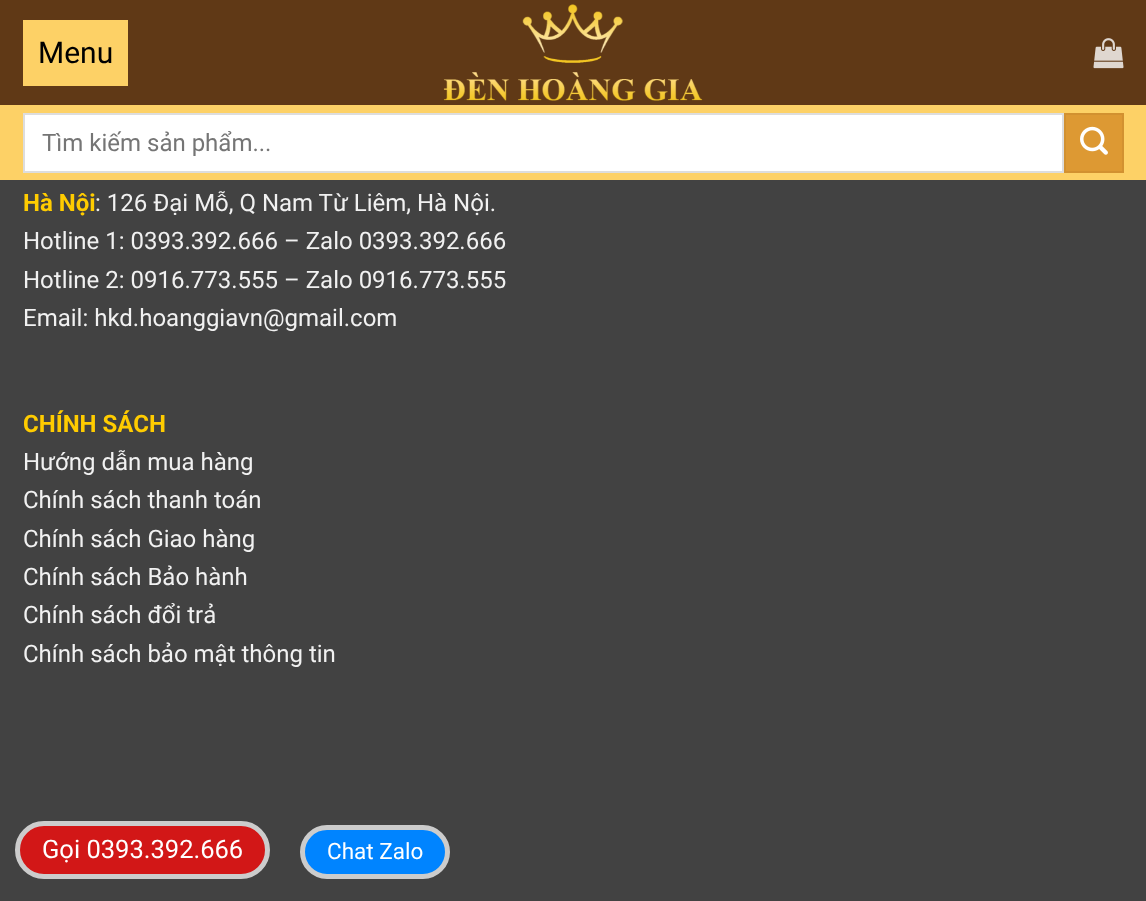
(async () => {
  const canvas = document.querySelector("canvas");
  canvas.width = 1146;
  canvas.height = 901;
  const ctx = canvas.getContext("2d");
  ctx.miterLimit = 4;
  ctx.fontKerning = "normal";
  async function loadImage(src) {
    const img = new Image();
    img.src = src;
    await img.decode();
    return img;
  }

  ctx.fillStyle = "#424242";
  ctx.fillRect(0, 0, 1146, 901);
  ctx.fillStyle = "#603916";
  ctx.fillRect(0, 0, 1146, 105);
  ctx.fillStyle = "#fdd166";
  ctx.fillRect(23, 20, 105, 66);
  ctx.drawImage(await loadImage("img/1.png"), 443, 4, 260, 97);
  ctx.drawImage(await loadImage("img/2.png"), 1093, 38, 31, 31);
  ctx.fillRect(0, 105, 1146, 75);
  ctx.fillStyle = "#ffffff";
  ctx.beginPath();
  ctx.rect(24, 114, 1039, 58);
  ctx.fill();
  ctx.strokeStyle = "#dddddd";
  ctx.lineWidth = 2;
  ctx.stroke();
  ctx.fillStyle = "#dd9933";
  ctx.beginPath();
  ctx.rect(1065, 114, 58, 58);
  ctx.fill();
  ctx.strokeStyle = "#d29130";
  ctx.stroke();
  ctx.drawImage(await loadImage("img/3.png"), 1080, 126, 28, 29);
  ctx.fillStyle = "#d21717";
  ctx.beginPath();
  ctx.roundRect(17.5, 823.5, 250, 53, 26.5);
  ctx.fill();
  ctx.strokeStyle = "#cccccc";
  ctx.lineWidth = 5;
  ctx.stroke();
  ctx.fillStyle = "#0084ff";
  ctx.beginPath();
  ctx.roundRect(302.5, 827.5, 145, 49, 24.5);
  ctx.fill();
  ctx.stroke();
  ctx.font = "30px Roboto";
  ctx.fillStyle = "#000000";
  ctx.fillText("Menu", 38, 63);
  ctx.font = "24px Roboto";
  ctx.fillStyle = "#757575";
  ctx.fillText("Tìm kiếm sản phẩm...", 42, 151);
  ctx.font = "bold 24px Roboto";
  ctx.fillStyle = "#ffcc00";
  ctx.fillText("Hà Nội", 23, 211);
  ctx.font = "24px Roboto";
  ctx.fillStyle = "#f1f1f1";
  for (const [text, x, y] of [
    [": 126 Đại Mỗ, Q Nam Từ Liêm, Hà Nội.", 95, 211],
    ["Hotline 1: 0393.392.666 – Zalo 0393.392.666", 23, 249],
    ["Hotline 2: 0916.773.555 – Zalo 0916.773.555", 23, 288],
    ["Email: hkd.hoanggiavn@gmail.com", 23, 326],
  ]) {
    ctx.fillText(text, x, y);
  }
  ctx.font = "bold 24px Roboto";
  ctx.fillStyle = "#ffcc00";
  ctx.fillText("CHÍNH SÁCH", 23, 432);
  ctx.font = "24px Roboto";
  ctx.fillStyle = "#f1f1f1";
  for (const [text, x, y] of [
    ["Hướng dẫn mua hàng", 23, 470],
    ["Chính sách thanh toán", 23, 508],
    ["Chính sách Giao hàng", 23, 547],
    ["Chính sách Bảo hành", 23, 585],
    ["Chính sách đổi trả", 23, 623],
    ["Chính sách bảo mật thông tin", 23, 662],
  ]) {
    ctx.fillText(text, x, y);
  }
  ctx.font = "25.5px Roboto";
  ctx.fillStyle = "#ffffff";
  ctx.fillText("Gọi 0393.392.666", 42, 858);
  ctx.font = "22.5px Roboto";
  ctx.fillText("Chat Zalo", 327, 859);
})();
